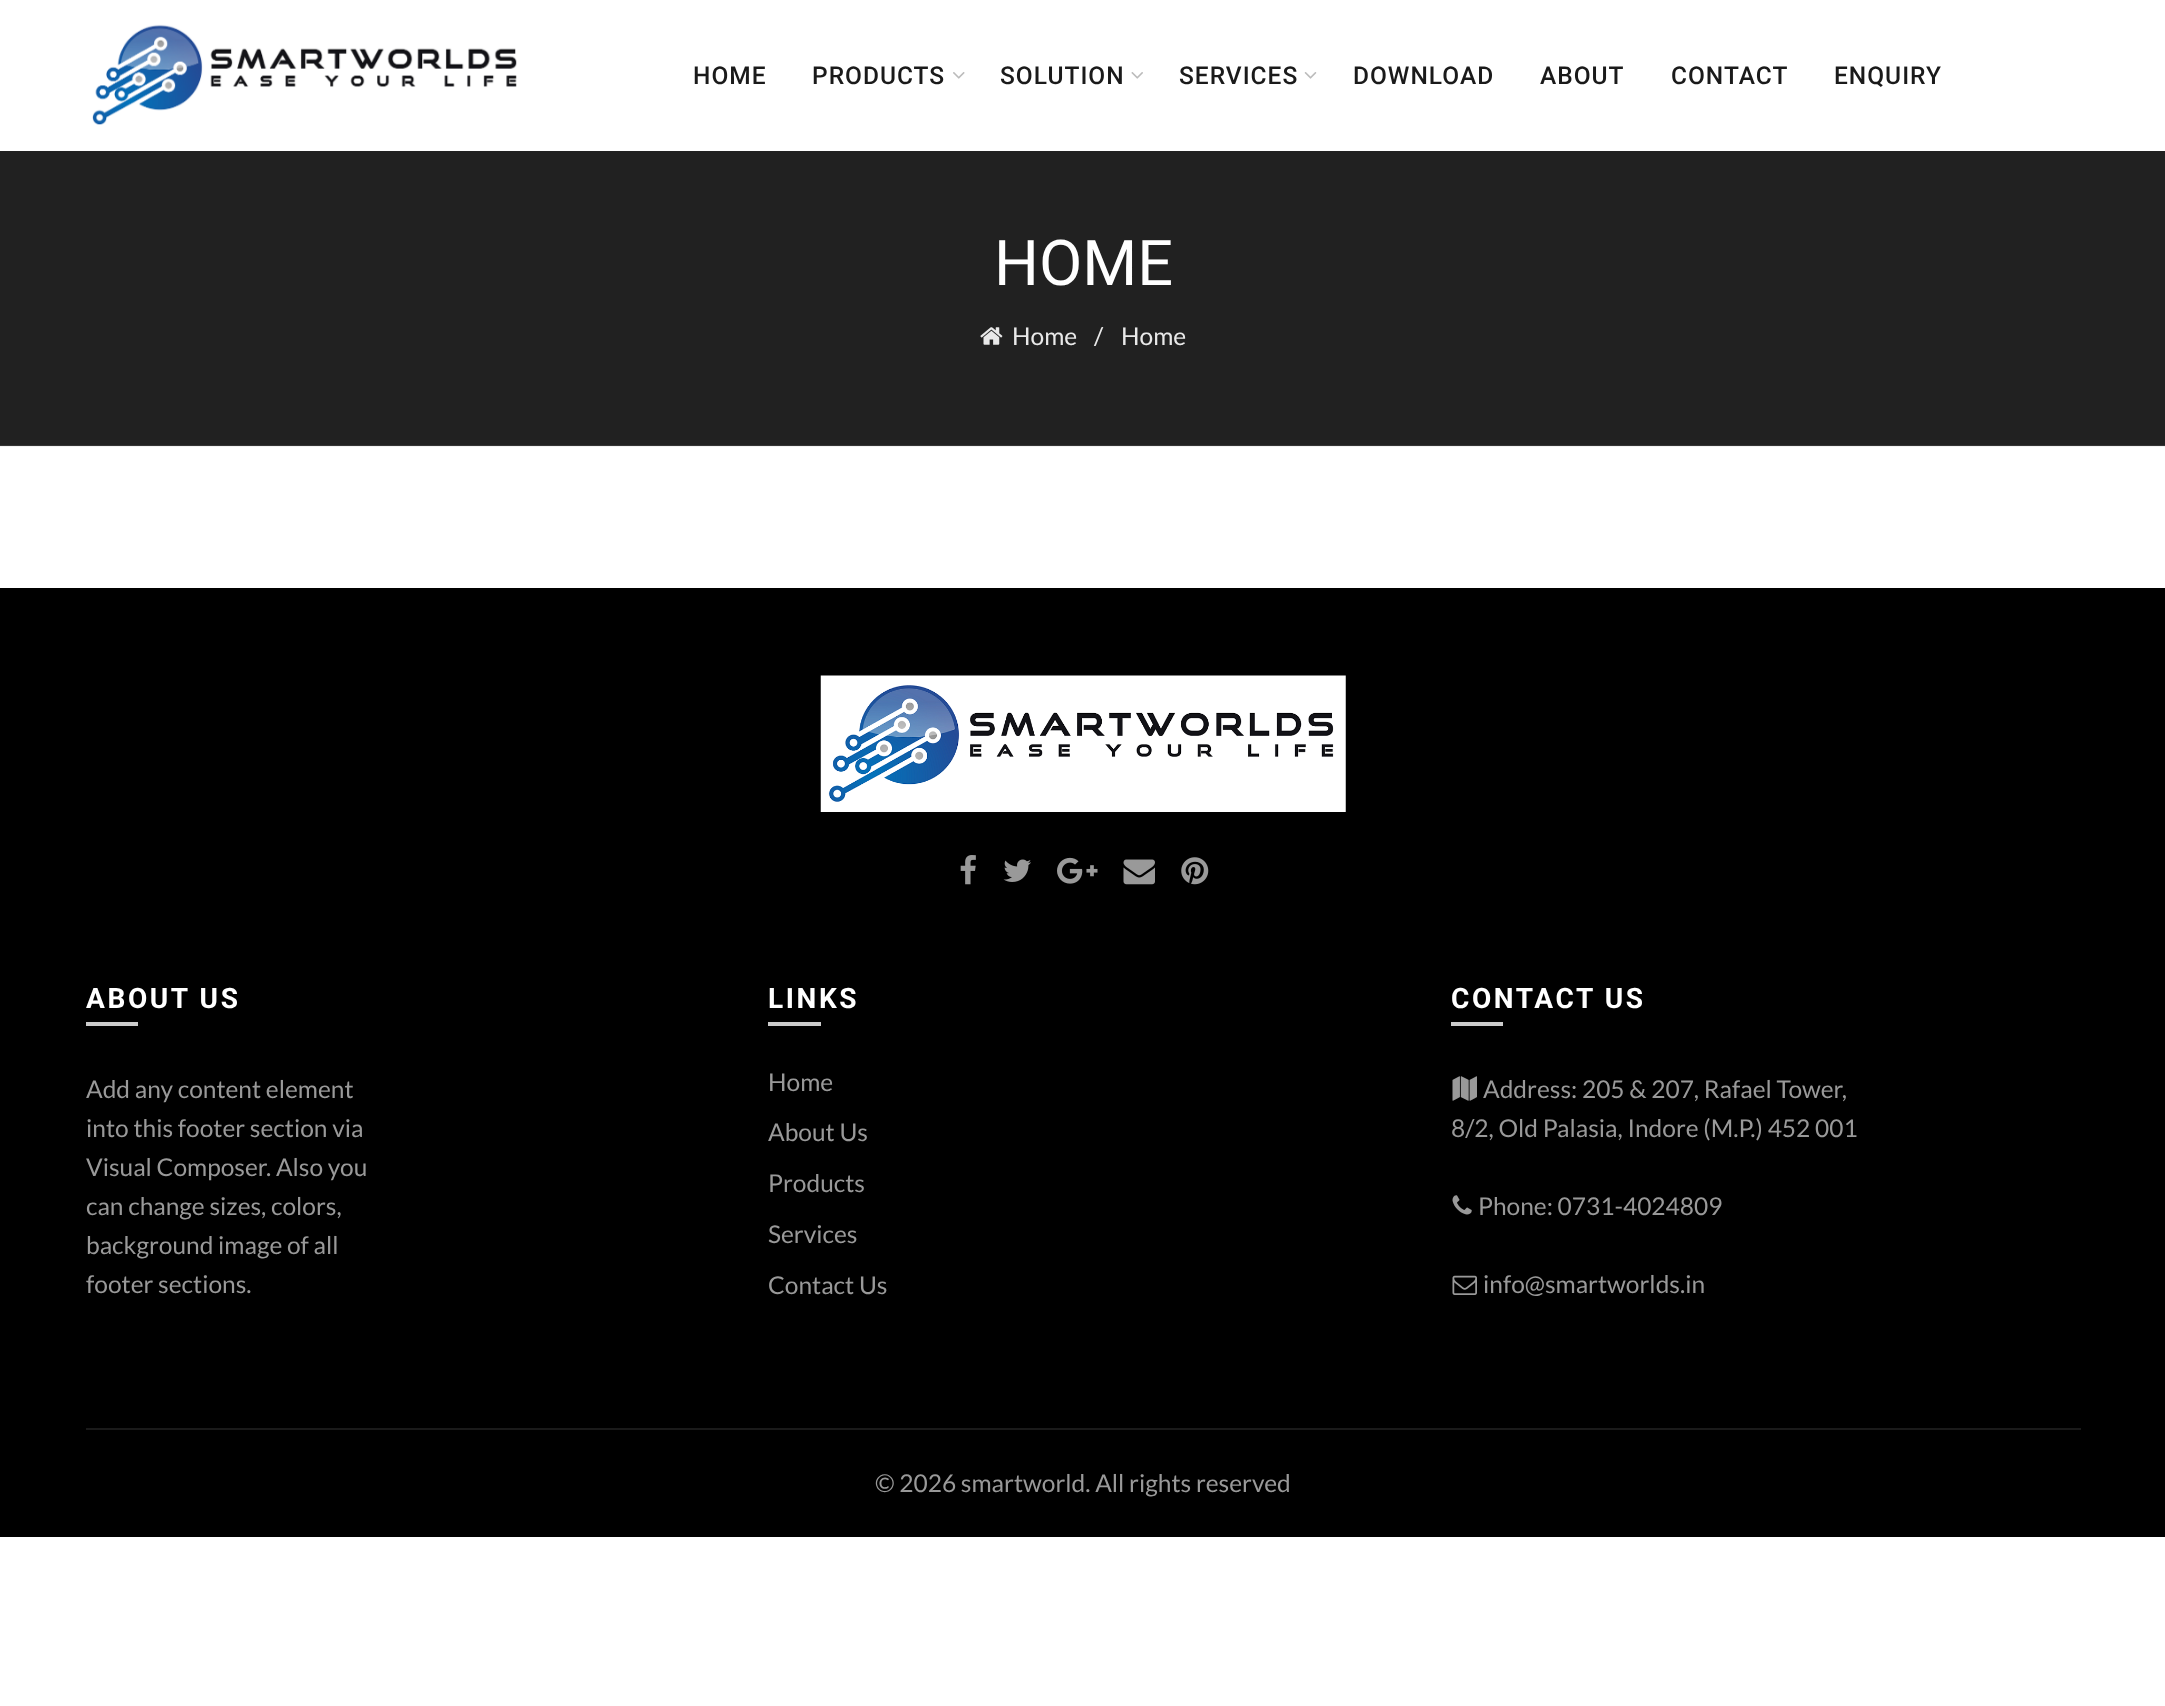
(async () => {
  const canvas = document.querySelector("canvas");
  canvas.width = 2165;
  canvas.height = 1706;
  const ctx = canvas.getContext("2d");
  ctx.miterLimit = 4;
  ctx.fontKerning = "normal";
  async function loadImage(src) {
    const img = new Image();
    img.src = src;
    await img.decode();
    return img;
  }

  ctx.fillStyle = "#ffffff";
  ctx.fillRect(0, 0, 2165, 1706);
  ctx.fillStyle = "#f2f2f2";
  ctx.fillRect(0, 446, 2165, 1);
  ctx.drawImage(await loadImage("img/1.png"), 92, 24, 425, 101);
  ctx.drawImage(await loadImage("img/2.png"), 953, 72, 12, 7);
  ctx.drawImage(await loadImage("img/3.png"), 1131, 72, 12, 7);
  ctx.drawImage(await loadImage("img/4.png"), 1304, 72, 13, 7);
  ctx.fillStyle = "#212121";
  ctx.fillRect(0, 151, 2165, 294);
  ctx.fillStyle = "#353535";
  ctx.fillRect(0, 445, 2165, 1);
  ctx.drawImage(await loadImage("img/5.png"), 980, 327, 23, 18);
  ctx.fillStyle = "#000000";
  ctx.fillRect(0, 588, 2165, 949);
  ctx.drawImage(await loadImage("img/6.png"), 820, 675, 526, 137);
  ctx.drawImage(await loadImage("img/7.png"), 960, 855, 16, 30);
  ctx.drawImage(await loadImage("img/8.png"), 1003, 859, 28, 23);
  ctx.drawImage(await loadImage("img/9.png"), 1057, 857, 41, 27);
  ctx.drawImage(await loadImage("img/10.png"), 1123, 859, 32, 26);
  ctx.drawImage(await loadImage("img/11.png"), 1181, 857, 28, 28);
  for (const [x, y, w, h, color] of [
    [86, 1022, 52, 4, "#cccccc"],
    [768, 1022, 53, 4, "#cccccc"],
    [1451, 1022, 52, 4, "#cccccc"],
  ]) {
    ctx.fillStyle = color;
    ctx.fillRect(x, y, w, h);
  }
  ctx.drawImage(await loadImage("img/12.png"), 1452, 1076, 25, 25);
  ctx.drawImage(await loadImage("img/13.png"), 1452, 1195, 20, 20);
  ctx.drawImage(await loadImage("img/14.png"), 1452, 1275, 25, 20);
  ctx.fillStyle = "#1a1a1a";
  ctx.fillRect(86, 1428, 1995, 2);
  ctx.letterSpacing = "1px";
  ctx.font = "500 24.5px Roboto";
  for (const [text, x, y] of [
    ["HOME", 693, 84],
    ["PRODUCTS", 812, 84],
    ["SOLUTION", 1000, 84],
    ["SERVICES", 1179, 84],
    ["DOWNLOAD", 1353, 84],
    ["ABOUT", 1540, 84],
    ["CONTACT", 1671, 84],
    ["ENQUIRY", 1834, 84],
  ]) {
    ctx.fillText(text, x, y);
  }
  ctx.letterSpacing = "0px";
  ctx.font = "63px Roboto";
  ctx.fillStyle = "#ffffff";
  ctx.fillText("HOME", 994, 285);
  ctx.font = "24.5px Lato";
  ctx.fillStyle = "#e9e9e9";
  for (const [text, x, y] of [
    ["Home", 1012, 345],
    ["/", 1094, 345],
    ["Home", 1121, 345],
  ]) {
    ctx.fillText(text, x, y);
  }
  ctx.letterSpacing = "2.6px";
  ctx.font = "bold 28px Roboto";
  ctx.fillStyle = "#ffffff";
  ctx.fillText("ABOUT US", 86, 1008);
  ctx.letterSpacing = "0px";
  ctx.font = "24.5px Lato";
  ctx.fillStyle = "#999999";
  for (const [text, x, y] of [
    ["Add any content element", 86, 1098],
    ["into this footer section via", 86, 1137],
    ["Visual Composer. Also you", 86, 1176],
    ["can change sizes, colors,", 86, 1215],
    ["background image of all", 86, 1254],
    ["footer sections.", 86, 1293],
  ]) {
    ctx.fillText(text, x, y);
  }
  ctx.letterSpacing = "2.6px";
  ctx.font = "bold 28px Roboto";
  ctx.fillStyle = "#ffffff";
  ctx.fillText("LINKS", 768, 1008);
  ctx.letterSpacing = "0px";
  ctx.font = "24.5px Lato";
  ctx.fillStyle = "#999999";
  for (const [text, x, y] of [
    ["Home", 768, 1091],
    ["About Us", 768, 1141],
    ["Products", 768, 1192],
    ["Services", 768, 1243],
    ["Contact Us", 768, 1294],
  ]) {
    ctx.fillText(text, x, y);
  }
  ctx.letterSpacing = "2.6px";
  ctx.font = "bold 28px Roboto";
  ctx.fillStyle = "#ffffff";
  ctx.fillText("CONTACT US", 1451, 1008);
  ctx.letterSpacing = "0px";
  ctx.font = "24.5px Lato";
  ctx.fillStyle = "#999999";
  for (const [text, x, y] of [
    ["Address: 205 & 207, Rafael Tower,", 1483, 1098],
    ["8/2, Old Palasia, Indore (M.P.) 452 001", 1451, 1137],
    ["Phone: 0731-4024809", 1478, 1215],
    ["info@smartworlds.in", 1483, 1293],
    ["© 2026 smartworld. All rights reserved", 875, 1492],
  ]) {
    ctx.fillText(text, x, y);
  }
})();
